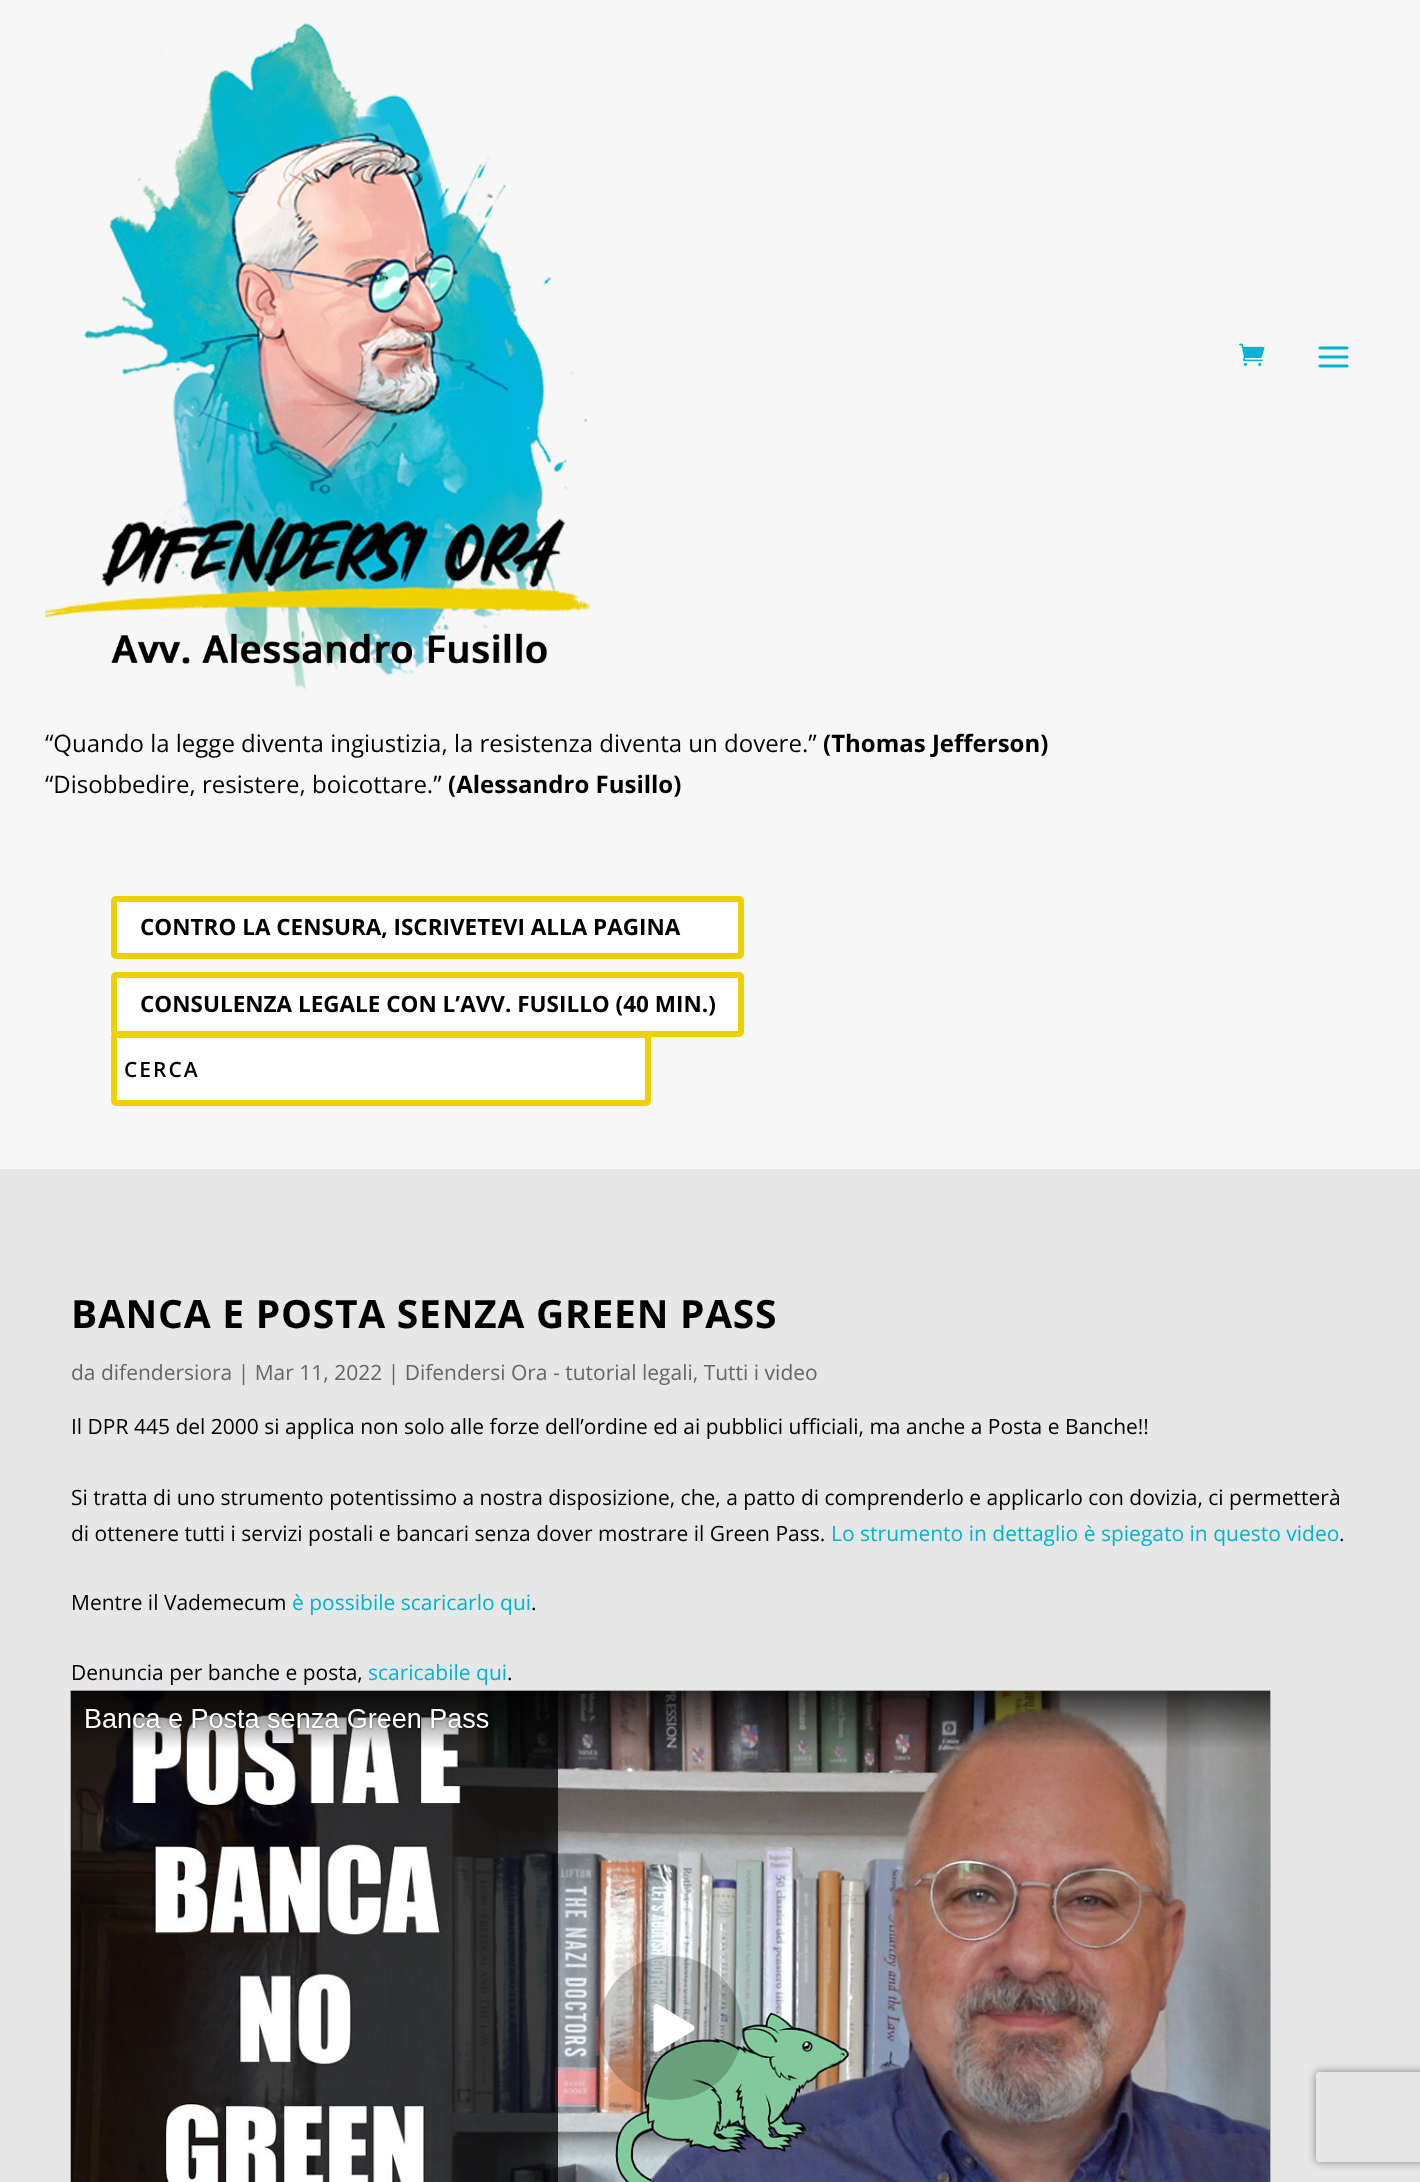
(async () => {
  const canvas = document.querySelector("canvas");
  canvas.width = 1420;
  canvas.height = 2182;
  const ctx = canvas.getContext("2d");
  ctx.miterLimit = 4;
  ctx.fontKerning = "normal";
  async function loadImage(src) {
    const img = new Image();
    img.src = src;
    await img.decode();
    return img;
  }
  let path;

  ctx.fillStyle = "#f7f7f7";
  ctx.fillRect(0, 0, 1420, 2182);
  ctx.drawImage(await loadImage("img/1.png"), 45, 22, 545, 669);
  ctx.drawImage(await loadImage("img/2.png"), 1239, 343, 26, 23);
  ctx.drawImage(await loadImage("img/3.png"), 1318, 346, 31, 22);
  ctx.fillStyle = "#ffffff";
  ctx.beginPath();
  ctx.roundRect(114, 899, 627, 57, 2);
  ctx.fill();
  ctx.strokeStyle = "#eed000";
  ctx.lineWidth = 6;
  ctx.stroke();
  ctx.beginPath();
  ctx.roundRect(114, 975, 627, 59, 2);
  ctx.fill();
  ctx.stroke();
  ctx.beginPath();
  ctx.roundRect(114, 1035, 534, 68, 2);
  ctx.strokeStyle = "#efd101";
  ctx.stroke();
  ctx.fillRect(117, 1038, 528, 62);
  ctx.fillStyle = "#e7e7e7";
  ctx.fillRect(0, 1169, 1420, 1013);
  ctx.drawImage(await loadImage("img/4.png"), 70, 1690, 1201, 492);
  ctx.save();
  path = new Path2D("M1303 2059H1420V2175H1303ZM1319 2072H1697C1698.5 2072 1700 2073.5 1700 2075V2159C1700 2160.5 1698.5 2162 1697 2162H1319C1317.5 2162 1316 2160.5 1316 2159V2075C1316 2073.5 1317.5 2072 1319 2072Z");
  ctx.clip(path, "evenodd");
  ctx.fillStyle = "#808080";
  ctx.filter = "blur(4px)";
  ctx.beginPath();
  ctx.roundRect(1316, 2072, 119, 90, 3);
  ctx.fill();
  ctx.filter = "none";
  ctx.restore();
  ctx.font = "24px Open Sans";
  ctx.fillStyle = "#000000";
  ctx.fillText("“Quando la legge diventa ingiustizia, la resistenza diventa un dovere.”", 45, 752);
  ctx.font = "bold 24px Open Sans";
  ctx.fillText("(Thomas Jefferson)", 823, 752);
  ctx.font = "24px Open Sans";
  ctx.fillText("“Disobbedire, resistere, boicottare.”", 45, 793);
  ctx.font = "bold 24px Open Sans";
  ctx.fillText("(Alessandro Fusillo)", 448, 793);
  ctx.font = "bold 22.5px Open Sans";
  ctx.fillText("CONTRO LA CENSURA, ISCRIVETEVI ALLA PAGINA", 140, 935);
  ctx.fillText("CONSULENZA LEGALE CON L’AVV. FUSILLO (40 MIN.)", 140, 1012);
  ctx.letterSpacing = "2px";
  ctx.font = "600 21px Open Sans";
  ctx.fillText("CERCA", 124, 1077);
  ctx.letterSpacing = "0.75px";
  ctx.font = "bold 39px Open Sans";
  ctx.fillText("BANCA E POSTA SENZA GREEN PASS", 71, 1328);
  ctx.letterSpacing = "0px";
  ctx.font = "21px Open Sans";
  ctx.fillStyle = "#666666";
  ctx.fillText("da difendersiora | Mar 11, 2022 | Difendersi Ora - tutorial legali, Tutti i video", 71, 1380);
  ctx.fillStyle = "#000000";
  for (const [text, x, y] of [
    ["Il DPR 445 del 2000 si applica non solo alle forze dell’ordine ed ai pubblici ufficiali, ma anche a Posta e Banche!!", 71, 1434],
    ["Si tratta di uno strumento potentissimo a nostra disposizione, che, a patto di comprenderlo e applicarlo con dovizia, ci permetterà", 71, 1505],
    ["di ottenere tutti i servizi postali e bancari senza dover mostrare il Green Pass.", 71, 1541],
  ]) {
    ctx.fillText(text, x, y);
  }
  ctx.fillStyle = "#02b5cc";
  ctx.fillText("Lo strumento in dettaglio è spiegato in questo video", 831, 1541);
  ctx.fillStyle = "#000000";
  ctx.fillText(".", 1339, 1541);
  ctx.fillText("Mentre il Vademecum", 71, 1610);
  ctx.fillStyle = "#02b5cc";
  ctx.fillText("è possibile scaricarlo qui", 292, 1610);
  ctx.fillStyle = "#000000";
  ctx.fillText(".", 531, 1610);
  ctx.fillText("Denuncia per banche e posta,", 71, 1680);
  ctx.fillStyle = "#02b5cc";
  ctx.fillText("scaricabile qui", 368, 1680);
  ctx.fillStyle = "#000000";
  ctx.fillText(".", 507, 1680);
})();
